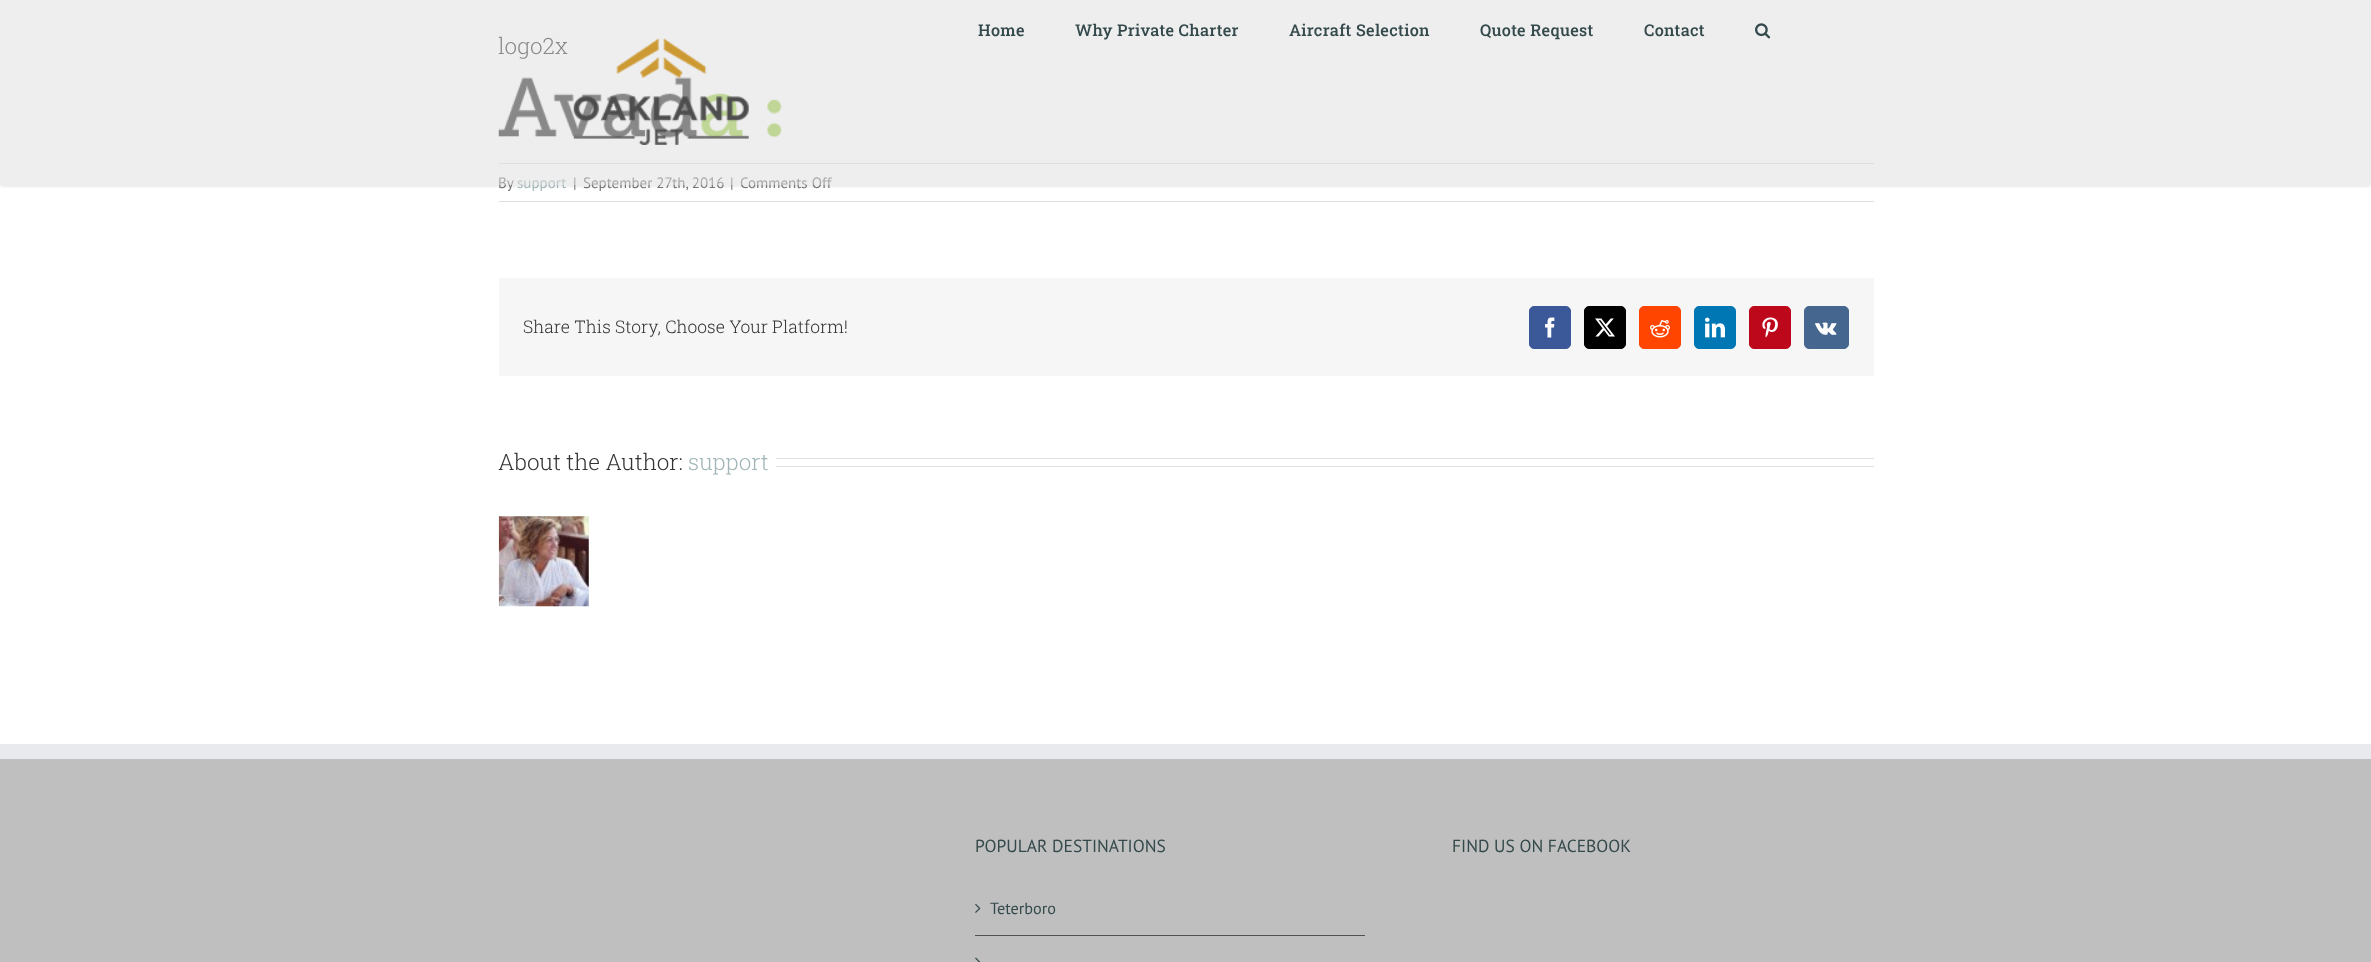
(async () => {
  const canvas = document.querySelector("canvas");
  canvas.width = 2371;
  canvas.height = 962;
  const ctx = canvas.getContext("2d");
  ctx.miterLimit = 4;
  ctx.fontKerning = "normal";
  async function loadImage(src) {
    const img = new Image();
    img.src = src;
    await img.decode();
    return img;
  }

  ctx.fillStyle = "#ffffff";
  ctx.fillRect(0, 0, 2371, 962);
  ctx.drawImage(await loadImage("img/3.png"), 498, 77, 284, 61);
  ctx.fillStyle = "#e0dede";
  ctx.fillRect(499, 163, 1375, 1);
  ctx.save();
  ctx.beginPath();
  ctx.rect(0, 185, 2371, 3);
  ctx.clip();
  ctx.fillStyle = "rgba(0, 0, 0, 0.12)";
  ctx.filter = "blur(2px)";
  ctx.beginPath();
  ctx.rect(0, 1, 2371, 185);
  ctx.fill();
  ctx.filter = "none";
  ctx.restore();
  ctx.fillRect(499, 201, 1375, 1);
  ctx.fillStyle = "#f6f6f6";
  ctx.fillRect(499, 278, 1375, 98);
  ctx.fillStyle = "#3b5998";
  ctx.beginPath();
  ctx.roundRect(1529.5, 306.5, 41, 42, 4.5);
  ctx.fill();
  ctx.strokeStyle = "#3b5998";
  ctx.stroke();
  ctx.drawImage(await loadImage("img/4.png"), 1545, 317, 10, 21);
  ctx.fillStyle = "#000000";
  ctx.beginPath();
  ctx.roundRect(1584.5, 306.5, 41, 42, 4.5);
  ctx.fill();
  ctx.strokeStyle = "#000000";
  ctx.stroke();
  ctx.drawImage(await loadImage("img/5.png"), 1595, 318, 20, 19);
  ctx.fillStyle = "#ff4500";
  ctx.beginPath();
  ctx.roundRect(1639.5, 306.5, 41, 42, 4.5);
  ctx.fill();
  ctx.strokeStyle = "#ff4500";
  ctx.stroke();
  ctx.drawImage(await loadImage("img/6.png"), 1650, 320, 20, 18);
  ctx.fillStyle = "#0077b5";
  ctx.beginPath();
  ctx.roundRect(1694.5, 306.5, 41, 42, 4.5);
  ctx.fill();
  ctx.strokeStyle = "#0077b5";
  ctx.stroke();
  ctx.drawImage(await loadImage("img/7.png"), 1705, 317, 20, 21);
  ctx.fillStyle = "#bd081c";
  ctx.beginPath();
  ctx.roundRect(1749.5, 306.5, 41, 42, 4.5);
  ctx.fill();
  ctx.strokeStyle = "#bd081c";
  ctx.stroke();
  ctx.drawImage(await loadImage("img/8.png"), 1762, 317, 16, 21);
  ctx.fillStyle = "#45668e";
  ctx.beginPath();
  ctx.roundRect(1804.5, 306.5, 44, 42, 4.5);
  ctx.fill();
  ctx.strokeStyle = "#45668e";
  ctx.stroke();
  ctx.drawImage(await loadImage("img/9.png"), 1815, 322, 22, 13);
  ctx.fillStyle = "#e0dede";
  ctx.fillRect(776, 458, 1098, 1);
  ctx.fillRect(776, 466, 1098, 1);
  ctx.drawImage(await loadImage("img/10.png"), 498, 516, 91, 91);
  for (const [x, y, w, h, color] of [
    [0, 759, 2371, 203, "#bfbfbf"],
    [0, 744, 2371, 15, "#e9eaee"],
    [975, 935, 390, 1, "#505152"],
  ]) {
    ctx.fillStyle = color;
    ctx.fillRect(x, y, w, h);
  }
  ctx.drawImage(await loadImage("img/11.png"), 975, 903, 6, 10);
  ctx.drawImage(await loadImage("img/12.png"), 975, 957, 6, 5);
  ctx.font = "300 22.5px Roboto Slab";
  ctx.fillStyle = "#333333";
  ctx.fillText("logo2x", 498, 54);
  ctx.font = "15px PT Sans";
  ctx.fillStyle = "#747474";
  ctx.fillText("By", 498, 188);
  ctx.fillStyle = "#a1b5b8";
  ctx.fillText("support", 517, 188);
  ctx.fillStyle = "#747474";
  for (const [text, x, y] of [
    ["|", 573, 188],
    ["September 27th, 2016", 583, 188],
    ["|", 730, 188],
    ["Comments Off", 740, 188],
  ]) {
    ctx.fillText(text, x, y);
  }
  ctx.fillStyle = "rgba(221, 221, 221, 0.5)";
  ctx.fillRect(0, 0, 2371, 185);
  ctx.drawImage(await loadImage("img/1.png"), 1755, 23, 16, 16);
  ctx.letterSpacing = "0.3px";
  ctx.font = "500 16.25px Roboto Slab";
  ctx.fillStyle = "#34494b";
  for (const [text, x, y] of [
    ["Contact", 1644, 36],
    ["Quote Request", 1480, 36],
    ["Aircraft Selection", 1289, 36],
    ["Why Private Charter", 1075, 36],
    ["Home", 978, 36],
  ]) {
    ctx.fillText(text, x, y);
  }
  ctx.drawImage(await loadImage("img/2.png"), 573, 38, 176, 107);
  ctx.letterSpacing = "0px";
  ctx.font = "300 17.5px Roboto Slab";
  ctx.fillStyle = "#333333";
  ctx.fillText("Share This Story, Choose Your Platform!", 523, 333);
  ctx.font = "300 22.5px Roboto Slab";
  ctx.fillText("About the Author:", 498, 470);
  ctx.fillStyle = "#a1b5b8";
  ctx.fillText("support", 688, 470);
  ctx.font = "17.5px PT Sans";
  ctx.fillStyle = "#34494b";
  ctx.fillText("POPULAR DESTINATIONS", 975, 852);
  ctx.font = "16.25px PT Sans";
  ctx.fillText("Teterboro", 990, 914);
  ctx.font = "17.5px PT Sans";
  ctx.fillText("FIND US ON FACEBOOK", 1452, 852);
})();
